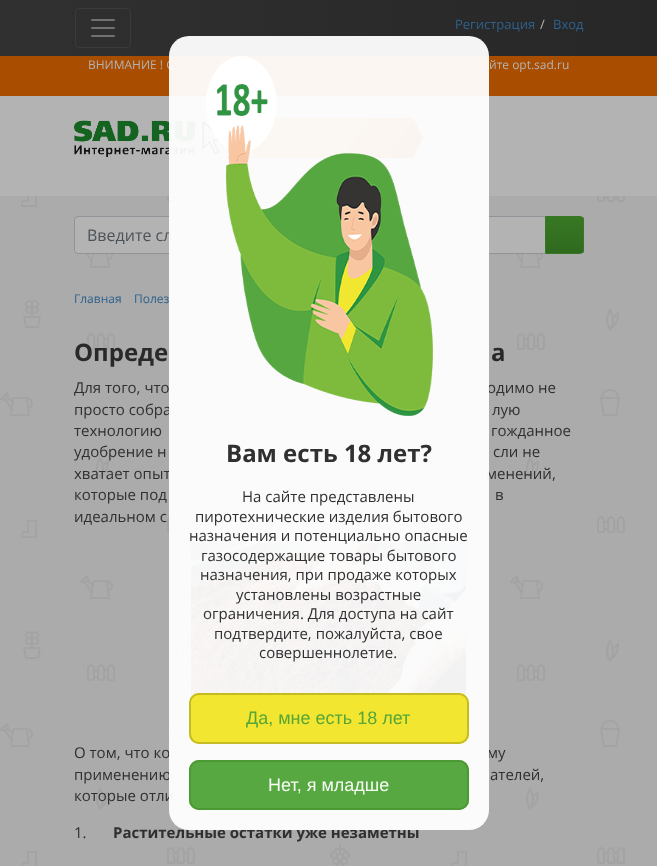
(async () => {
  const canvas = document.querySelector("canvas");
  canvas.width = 657;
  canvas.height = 866;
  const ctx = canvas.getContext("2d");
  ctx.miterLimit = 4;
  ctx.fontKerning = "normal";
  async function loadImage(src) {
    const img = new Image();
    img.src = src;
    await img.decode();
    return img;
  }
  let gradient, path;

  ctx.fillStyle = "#ababab";
  ctx.fillRect(0, 0, 657, 866);
  ctx.drawImage(await loadImage("img/1.png"), 0, 196, 625, 670);
  gradient = ctx.createLinearGradient(0, 28, 657, 28);
  gradient.addColorStop(0, "#303030");
  gradient.addColorStop(1, "#272727");
  ctx.fillStyle = gradient;
  ctx.fillRect(0, 0, 657, 56);
  ctx.beginPath();
  ctx.roundRect(75.5, 8.5, 55, 39, 3.5);
  ctx.strokeStyle = "#3b3b3b";
  ctx.stroke();
  ctx.drawImage(await loadImage("img/2.png"), 91, 19, 24, 18);
  ctx.fillStyle = "#a94d01";
  ctx.fillRect(0, 56, 657, 40);
  ctx.fillStyle = "#b3b3b3";
  ctx.fillRect(0, 96, 657, 100);
  ctx.drawImage(await loadImage("img/3.png"), 74, 120, 149, 37);
  gradient = ctx.createLinearGradient(270, 94, 396, 182);
  gradient.addColorStop(0, "#b37100");
  gradient.addColorStop(0.5, "#b36500");
  gradient.addColorStop(1, "#b33f00");
  ctx.fillStyle = gradient;
  ctx.fillRect(253, 118, 160, 40);
  ctx.fillStyle = "#b33f00";
  path = new Path2D("M413 158V118L423 138Z");
  ctx.fill(path);
  ctx.drawImage(await loadImage("img/4.png"), 340, 186, 20, 17);
  path = new Path2D("M263 202.5H329");
  ctx.strokeStyle = "#00639b";
  ctx.setLineDash([3, 1.85]);
  ctx.stroke(path);
  ctx.fillStyle = "#b3b3b3";
  ctx.beginPath();
  ctx.roundRect(74.5, 216.5, 471, 37, [3.5, 0, 0, 3.5]);
  ctx.fill();
  ctx.strokeStyle = "#909499";
  ctx.setLineDash([]);
  ctx.stroke();
  ctx.save();
  ctx.beginPath();
  ctx.roundRect(545, 216, 39, 38, [0, 4, 4, 0]);
  ctx.clip();
  gradient = ctx.createLinearGradient(565, 217, 565, 253);
  gradient.addColorStop(0, "#377823");
  gradient.addColorStop(1, "#306a1f");
  ctx.fillStyle = gradient;
  ctx.fillRect(546, 217, 38, 36);
  ctx.restore();
  ctx.beginPath();
  ctx.roundRect(545.5, 216.5, 38, 37, [0, 3.5, 3.5, 0]);
  ctx.strokeStyle = "#377823";
  ctx.stroke();
  ctx.drawImage(await loadImage("img/5.png"), 191, 543, 275, 183);
  ctx.font = "13px Open Sans";
  ctx.fillStyle = "#2e618d";
  ctx.fillText("Регистрация", 455, 29);
  ctx.fillStyle = "#b3b3b3";
  ctx.fillText("/", 540, 29);
  ctx.fillStyle = "#2e618d";
  ctx.fillText("Вход", 553, 29);
  ctx.font = "12px Open Sans";
  ctx.fillStyle = "#b3b3b3";
  ctx.fillText("ВНИМАНИЕ ! С", 88, 69);
  ctx.fillText("йте opt.sad.ru", 489, 69);
  ctx.font = "16px Open Sans";
  ctx.fillStyle = "#4c5258";
  ctx.fillText("Введите сл", 87, 241);
  ctx.font = "12px Open Sans";
  ctx.fillStyle = "#2e618d";
  ctx.fillText("Главная", 74, 303);
  ctx.fillText("Полез", 134, 303);
  ctx.font = "bold 24px Open Sans";
  ctx.fillStyle = "#292929";
  ctx.fillText("Опреде", 74, 361);
  ctx.fillText("а", 491, 361);
  ctx.font = "15px Open Sans";
  ctx.fillStyle = "#303030";
  for (const [text, x, y] of [
    ["Для того, что", 74, 393],
    ["одимо не", 487, 393],
    ["просто собра", 74, 415],
    ["лую", 492, 415],
    ["технологию", 74, 436],
    ["гожданное", 491, 436],
    ["удобрение н", 74, 457],
    ["сли не", 493, 457],
    ["хватает опыт", 74, 479],
    ["менений,", 486, 479],
    ["которые под", 74, 500],
    ["в", 495, 500],
    ["идеальном с", 74, 522],
    ["О том, что ко", 74, 758],
    ["му", 487, 758],
    ["применению", 74, 780],
    ["ателей,", 490, 780],
    ["которые отли", 74, 801],
    ["1.", 74, 838],
  ]) {
    ctx.fillText(text, x, y);
  }
  ctx.font = "bold 15px Open Sans";
  ctx.fillText("Растительные остатки уже незаметны", 113, 838);
  ctx.fillStyle = "rgba(255, 255, 255, 0.95)";
  ctx.beginPath();
  ctx.roundRect(169, 36, 320, 794, 20);
  ctx.fill();
  ctx.drawImage(await loadImage("img/6.png"), 206, 56, 227, 360);
  ctx.font = "bold 24px Open Sans";
  ctx.fillStyle = "#303030";
  ctx.fillText("Вам есть 18 лет?", 226, 462);
  ctx.font = "15px Open Sans";
  for (const [text, x, y] of [
    ["На сайте представлены", 242, 502],
    ["пиротехнические изделия бытового", 195, 522],
    ["назначения и потенциально опасные", 189, 541],
    ["газосодержащие товары бытового", 201, 561],
    ["назначения, при продаже которых", 200, 580],
    ["установлены возрастные", 236, 600],
    ["ограничения. Для доступа на сайт", 203, 619],
    ["подтвердите, пожалуйста, свое", 214, 639],
    ["совершеннолетие.", 259, 658],
  ]) {
    ctx.fillText(text, x, y);
  }
  ctx.fillStyle = "rgba(241, 229, 37, 0.95)";
  ctx.beginPath();
  ctx.roundRect(189, 693, 280, 51, 10);
  ctx.fill();
  ctx.beginPath();
  ctx.roundRect(190, 694, 278, 49, 9);
  ctx.strokeStyle = "rgba(193, 185, 34, 0.95)";
  ctx.lineWidth = 2;
  ctx.stroke();
  ctx.font = "18px Liberation Sans";
  ctx.fillStyle = "#57a637";
  ctx.fillText("Да, мне есть 18 лет", 246, 724);
  ctx.fillStyle = "rgba(79, 163, 55, 0.95)";
  ctx.beginPath();
  ctx.roundRect(189, 760, 280, 50, 10);
  ctx.fill();
  ctx.beginPath();
  ctx.roundRect(190, 761, 278, 48, 9);
  ctx.strokeStyle = "rgba(76, 152, 51, 0.95)";
  ctx.stroke();
  ctx.fillStyle = "#f7fbf5";
  ctx.fillText("Нет, я младше", 268, 791);
})();
